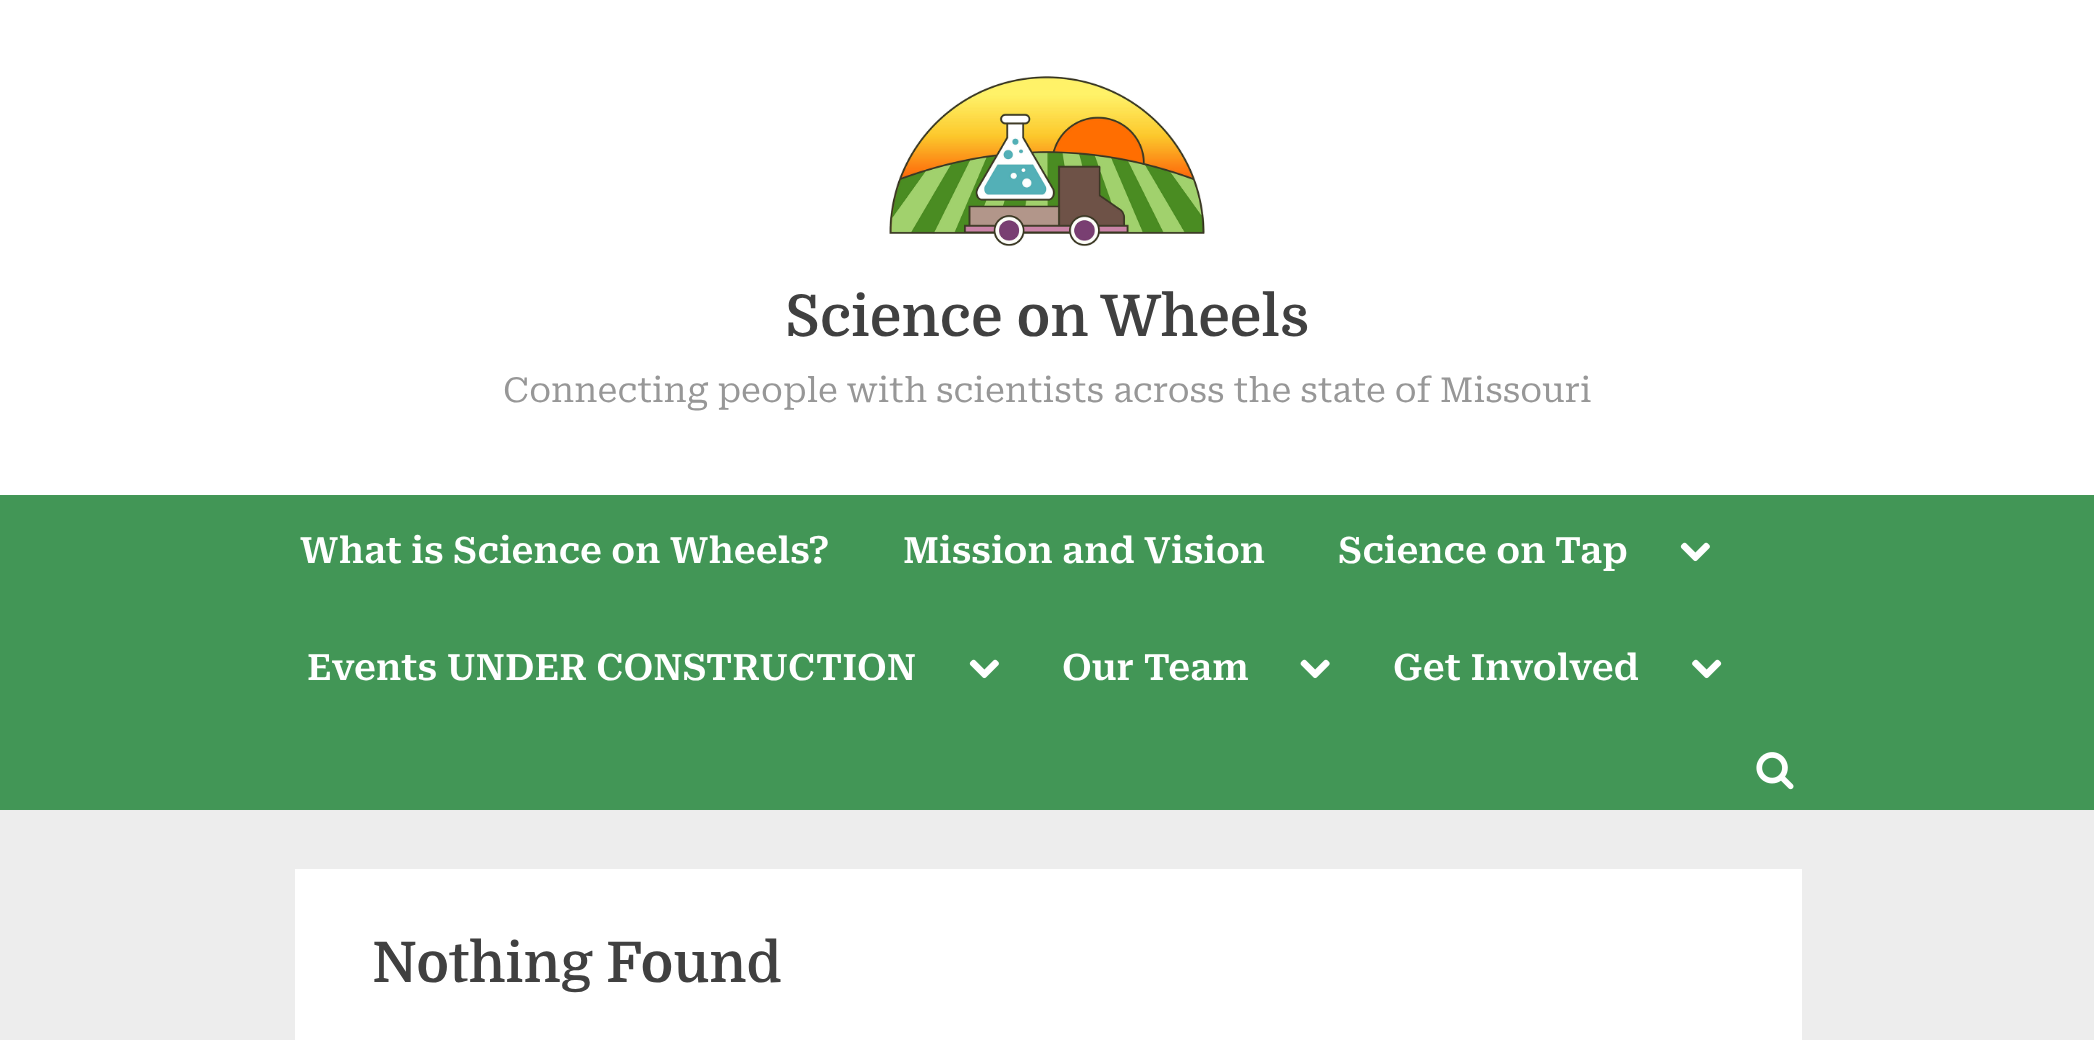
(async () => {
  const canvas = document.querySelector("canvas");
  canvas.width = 2094;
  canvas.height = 1040;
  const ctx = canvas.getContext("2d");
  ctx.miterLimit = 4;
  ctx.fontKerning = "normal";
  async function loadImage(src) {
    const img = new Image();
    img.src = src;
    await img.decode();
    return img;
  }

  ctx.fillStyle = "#ededed";
  ctx.fillRect(0, 0, 2094, 1040);
  ctx.fillStyle = "#ffffff";
  ctx.fillRect(0, 0, 2094, 495);
  ctx.drawImage(await loadImage("img/1.png"), 889, 76, 316, 171);
  ctx.fillStyle = "#429656";
  ctx.fillRect(0, 495, 2094, 315);
  ctx.drawImage(await loadImage("img/2.png"), 1680, 542, 30, 20);
  ctx.drawImage(await loadImage("img/2.png"), 969, 659, 30, 20);
  ctx.drawImage(await loadImage("img/3.png"), 1300, 659, 30, 20);
  ctx.drawImage(await loadImage("img/4.png"), 1692, 659, 30, 20);
  ctx.drawImage(await loadImage("img/5.png"), 1756, 752, 38, 38);
  ctx.fillStyle = "#ffffff";
  ctx.fillRect(295, 869, 1507, 171);
  ctx.font = "600 57.4px Domine";
  ctx.fillStyle = "#404040";
  ctx.fillText("Science on Wheels", 785, 336);
  ctx.font = "34.4px Roboto Serif";
  ctx.fillStyle = "#979797";
  ctx.fillText("Connecting people with scientists across the state of Missouri", 503, 402);
  ctx.font = "600 36.3px Roboto Serif";
  ctx.fillStyle = "#ffffff";
  for (const [text, x, y] of [
    ["What is Science on Wheels?", 300, 563],
    ["Mission and Vision", 903, 563],
    ["Science on Tap", 1338, 563],
    ["Events UNDER CONSTRUCTION", 307, 680],
    ["Our Team", 1062, 680],
    ["Get Involved", 1393, 680],
  ]) {
    ctx.fillText(text, x, y);
  }
  ctx.font = "600 55.75px Domine";
  ctx.fillStyle = "#404040";
  ctx.fillText("Nothing Found", 372, 982);
})();
